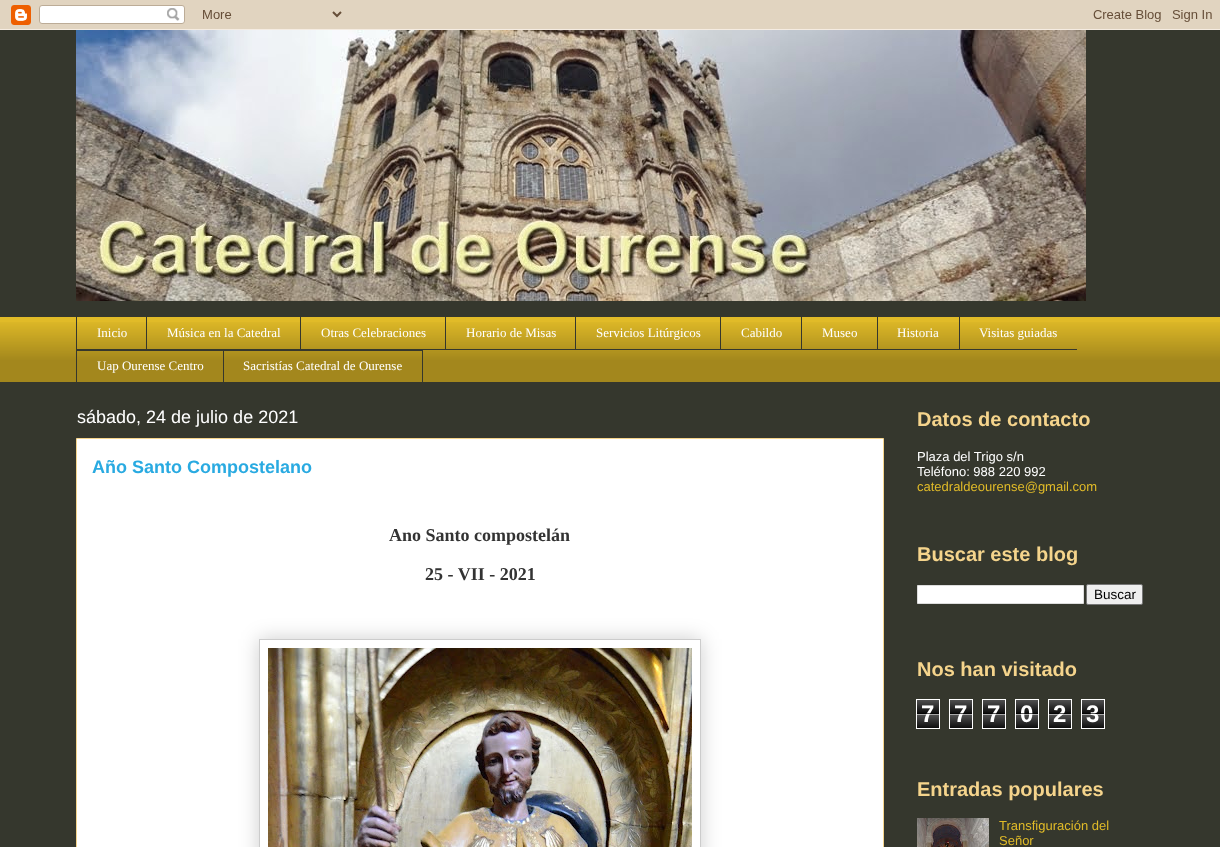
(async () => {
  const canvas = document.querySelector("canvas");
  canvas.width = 1220;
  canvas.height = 847;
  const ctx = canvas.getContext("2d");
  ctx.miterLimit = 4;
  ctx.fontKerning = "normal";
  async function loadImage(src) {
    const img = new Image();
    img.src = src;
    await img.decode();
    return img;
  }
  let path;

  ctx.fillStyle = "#35372d";
  ctx.fillRect(0, 0, 1220, 847);
  ctx.drawImage(await loadImage("img/1.png"), 0, 0, 1220, 30);
  ctx.drawImage(await loadImage("img/2.png"), 76, 30, 1010, 271);
  ctx.fillStyle = "#e1bb28";
  ctx.fillRect(0, 317, 1220, 65);
  ctx.drawImage(await loadImage("img/3.png"), 0, 322, 1220, 60);
  for (const [x, y, w, h, color] of [
    [76, 349, 1001, 1, "#35372d"],
    [76, 316, 1, 34, "#35372d"],
    [146, 316, 1, 34, "#35372d"],
    [300, 316, 1, 34, "#35372d"],
    [445, 316, 1, 34, "#35372d"],
    [575, 316, 1, 34, "#35372d"],
    [720, 316, 1, 34, "#35372d"],
    [801, 316, 1, 34, "#35372d"],
    [877, 316, 1, 34, "#35372d"],
    [959, 316, 1, 34, "#35372d"],
    [76, 350, 147, 1, "#35372d"],
    [76, 350, 1, 33, "#35372d"],
  ]) {
    ctx.fillStyle = color;
    ctx.fillRect(x, y, w, h);
  }
  ctx.strokeStyle = "#35372d";
  ctx.strokeRect(223.5, 350.5, 199, 32);
  ctx.fillStyle = "#ffffff";
  ctx.beginPath();
  ctx.rect(76.5, 438.5, 807, 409);
  ctx.fill();
  ctx.strokeStyle = "#f5d48c";
  ctx.stroke();
  ctx.save();
  path = new Path2D("M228 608H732V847H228ZM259 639H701V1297H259Z");
  ctx.clip(path, "evenodd");
  ctx.fillStyle = "rgba(0, 0, 0, 0.2)";
  ctx.filter = "blur(10px)";
  ctx.beginPath();
  ctx.rect(259, 639, 442, 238);
  ctx.fill();
  ctx.filter = "none";
  ctx.restore();
  ctx.strokeStyle = "#cccccc";
  ctx.strokeRect(259.5, 639.5, 441, 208);
  ctx.drawImage(await loadImage("img/4.png"), 268, 648, 424, 199);
  ctx.beginPath();
  ctx.rect(917.5, 585.5, 166, 18);
  ctx.fill();
  ctx.strokeStyle = "#dddddd";
  ctx.stroke();
  ctx.fillStyle = "#efefef";
  ctx.beginPath();
  ctx.roundRect(1086.5, 584.5, 56, 20, 1.5);
  ctx.fill();
  ctx.strokeStyle = "#767676";
  ctx.stroke();
  ctx.drawImage(await loadImage("img/5.png"), 917, 700, 22, 28);
  ctx.strokeStyle = "#ffffff";
  ctx.strokeRect(916.5, 699.5, 23, 29);
  ctx.drawImage(await loadImage("img/5.png"), 950, 700, 22, 28);
  ctx.strokeRect(949.5, 699.5, 23, 29);
  ctx.drawImage(await loadImage("img/5.png"), 983, 700, 22, 28);
  ctx.strokeRect(982.5, 699.5, 23, 29);
  ctx.drawImage(await loadImage("img/5.png"), 1016, 700, 22, 28);
  ctx.strokeRect(1015.5, 699.5, 23, 29);
  ctx.drawImage(await loadImage("img/5.png"), 1049, 700, 22, 28);
  ctx.strokeRect(1048.5, 699.5, 23, 29);
  ctx.drawImage(await loadImage("img/5.png"), 1082, 700, 22, 28);
  ctx.strokeRect(1081.5, 699.5, 23, 29);
  ctx.drawImage(await loadImage("img/6.png"), 917, 818, 72, 29);
  ctx.font = "13px Liberation Serif";
  ctx.fillStyle = "#ffffff";
  for (const [text, x, y] of [
    ["Inicio", 97, 337],
    ["Música en la Catedral", 167, 337],
    ["Otras Celebraciones", 321, 337],
    ["Horario de Misas", 466, 337],
    ["Servicios Litúrgicos", 596, 337],
    ["Cabildo", 741, 337],
    ["Museo", 822, 337],
    ["Historia", 897, 337],
    ["Visitas guiadas", 979, 337],
    ["Uap Ourense Centro", 97, 370],
    ["Sacristías Catedral de Ourense", 243, 370],
  ]) {
    ctx.fillText(text, x, y);
  }
  ctx.font = "18px Liberation Sans";
  ctx.fillText("sábado, 24 de julio de 2021", 77, 423);
  ctx.font = "bold 18px Liberation Sans";
  ctx.fillStyle = "#29aae1";
  ctx.fillText("Año Santo Compostelano", 92, 473);
  ctx.font = "bold 18px Liberation Serif";
  ctx.fillStyle = "#333333";
  ctx.fillText("Ano Santo compostelán", 389, 541);
  ctx.fillText("25 - VII - 2021", 425, 580);
  ctx.font = "bold 20px Liberation Sans";
  ctx.fillStyle = "#f5d48c";
  ctx.fillText("Datos de contacto", 917, 426);
  ctx.font = "13px Liberation Sans";
  ctx.fillStyle = "#ffffff";
  ctx.fillText("Plaza del Trigo s/n", 917, 461);
  ctx.fillText("Teléfono: 988 220 992", 917, 476);
  ctx.fillStyle = "#e1bb28";
  ctx.fillText("catedraldeourense@gmail.com", 917, 491);
  ctx.font = "bold 20px Liberation Sans";
  ctx.fillStyle = "#f5d48c";
  ctx.fillText("Buscar este blog", 917, 561);
  ctx.font = "13.5px Liberation Sans";
  ctx.fillStyle = "#000000";
  ctx.fillText("Buscar", 1094, 599);
  ctx.font = "bold 20px Liberation Sans";
  ctx.fillStyle = "#f5d48c";
  ctx.fillText("Nos han visitado", 917, 676);
  ctx.font = "bold 24px Liberation Sans";
  ctx.fillStyle = "#ffffff";
  ctx.fillText("7", 921, 722);
  ctx.fillStyle = "rgba(0, 0, 0, 0.65)";
  ctx.fillRect(917, 713, 22, 1);
  ctx.fillStyle = "rgba(255, 255, 255, 0.65)";
  ctx.fillRect(917, 714, 22, 1);
  ctx.fillStyle = "#ffffff";
  ctx.fillText("7", 954, 722);
  ctx.fillStyle = "rgba(0, 0, 0, 0.65)";
  ctx.fillRect(950, 713, 22, 1);
  ctx.fillStyle = "rgba(255, 255, 255, 0.65)";
  ctx.fillRect(950, 714, 22, 1);
  ctx.fillStyle = "#ffffff";
  ctx.fillText("7", 987, 722);
  ctx.fillStyle = "rgba(0, 0, 0, 0.65)";
  ctx.fillRect(983, 713, 22, 1);
  ctx.fillStyle = "rgba(255, 255, 255, 0.65)";
  ctx.fillRect(983, 714, 22, 1);
  ctx.fillStyle = "#ffffff";
  ctx.fillText("0", 1020, 722);
  ctx.fillStyle = "rgba(0, 0, 0, 0.65)";
  ctx.fillRect(1016, 713, 22, 1);
  ctx.fillStyle = "rgba(255, 255, 255, 0.65)";
  ctx.fillRect(1016, 714, 22, 1);
  ctx.fillStyle = "#ffffff";
  ctx.fillText("2", 1053, 722);
  ctx.fillStyle = "rgba(0, 0, 0, 0.65)";
  ctx.fillRect(1049, 713, 22, 1);
  ctx.fillStyle = "rgba(255, 255, 255, 0.65)";
  ctx.fillRect(1049, 714, 22, 1);
  ctx.fillStyle = "#ffffff";
  ctx.fillText("3", 1086, 722);
  ctx.fillStyle = "rgba(0, 0, 0, 0.65)";
  ctx.fillRect(1082, 713, 22, 1);
  ctx.fillStyle = "rgba(255, 255, 255, 0.65)";
  ctx.fillRect(1082, 714, 22, 1);
  ctx.font = "bold 20px Liberation Sans";
  ctx.fillStyle = "#f5d48c";
  ctx.fillText("Entradas populares", 917, 796);
  ctx.font = "13px Liberation Sans";
  ctx.fillStyle = "#e1bb28";
  ctx.fillText("Transfiguración del", 999, 830);
  ctx.fillText("Señor", 999, 845);
})();
